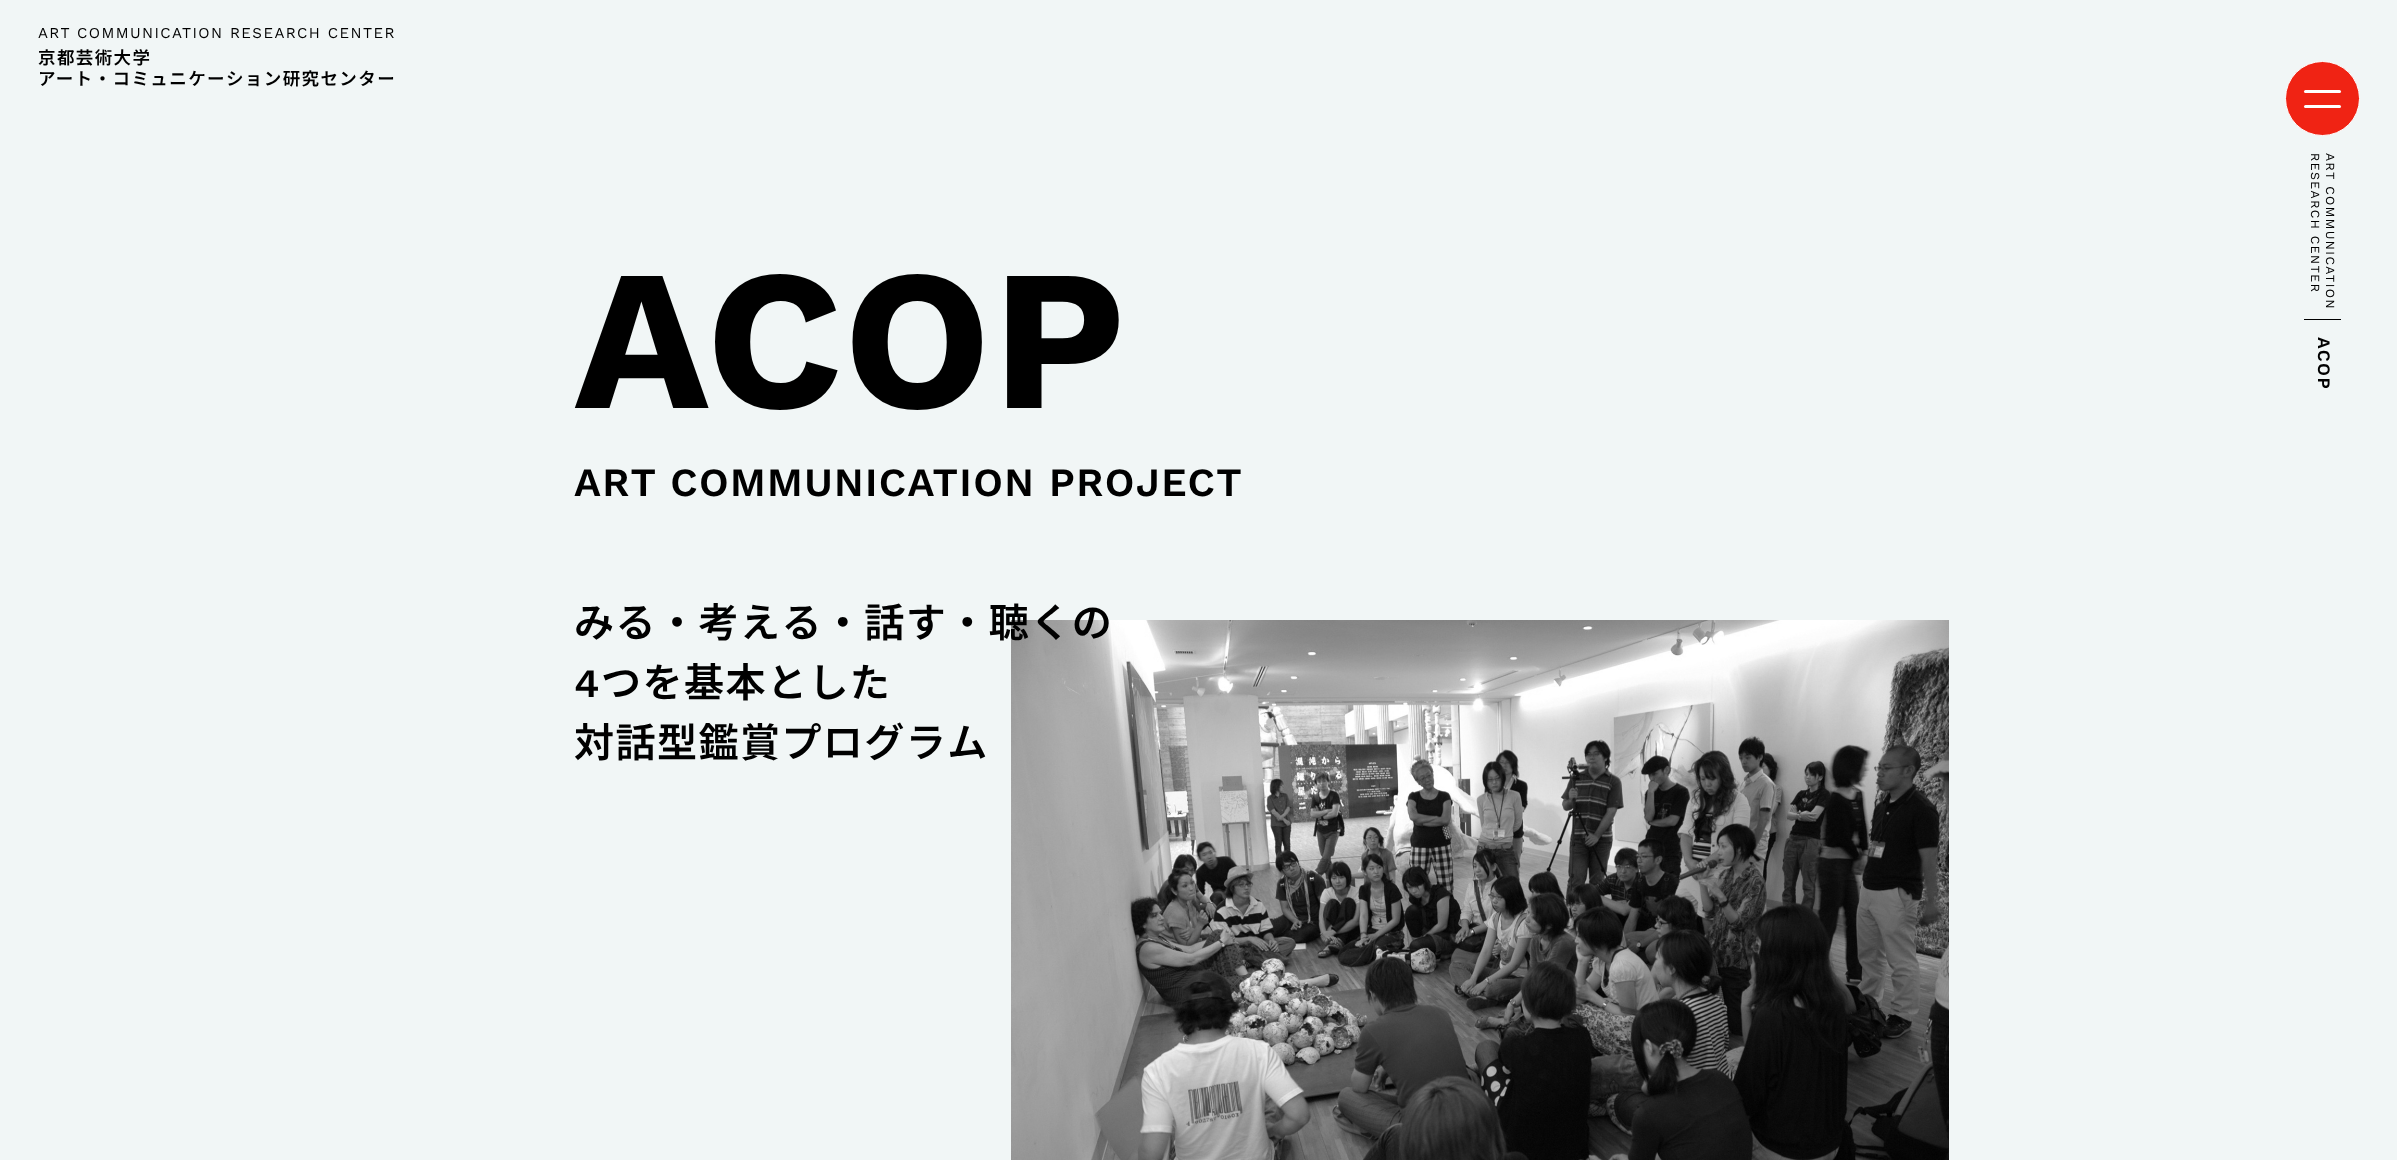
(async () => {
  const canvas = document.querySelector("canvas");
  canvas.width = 2397;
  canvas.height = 1160;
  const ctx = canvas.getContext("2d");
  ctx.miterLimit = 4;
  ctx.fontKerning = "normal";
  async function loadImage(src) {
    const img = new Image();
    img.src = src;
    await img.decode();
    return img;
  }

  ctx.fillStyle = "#f1f6f6";
  ctx.fillRect(0, 0, 2397, 1160);
  ctx.fillStyle = "#f02314";
  ctx.beginPath();
  ctx.arc(2322.5, 98.5, 37, 0, Math.PI * 2);
  ctx.fill();
  ctx.strokeStyle = "#ffffff";
  ctx.stroke();
  ctx.fillStyle = "#ffffff";
  ctx.beginPath();
  ctx.roundRect(2304, 90, 37, 3, 1.5);
  ctx.fill();
  ctx.beginPath();
  ctx.roundRect(2304, 105, 37, 3, 1.5);
  ctx.fill();
  ctx.drawImage(await loadImage("img/1.png"), 1011, 620, 938, 540);
  ctx.fillStyle = "#000000";
  ctx.fillRect(2304, 319, 37, 1);
  ctx.letterSpacing = "1.4px";
  ctx.font = "15.05px Work Sans";
  ctx.fillText("ART COMMUNICATION RESEARCH CENTER", 38, 38);
  ctx.font = "600 17.5px Noto Sans JP";
  ctx.fillText("京都芸術大学", 38, 64);
  ctx.fillText("アート・コミュニケーション研究センター", 38, 85);
  ctx.font = "bold 200px Work Sans";
  ctx.fillText("ACOP", 574, 408);
  ctx.font = "600 40.1px Work Sans";
  ctx.fillText("ART COMMUNICATION PROJECT", 574, 496);
  ctx.font = "600 40.1px Noto Sans JP";
  ctx.fillText("みる・考える・話す・聴くの", 574, 637);
  ctx.font = "600 40.1px Work Sans";
  ctx.fillText("4", 574, 697);
  ctx.font = "600 40.1px Noto Sans JP";
  ctx.fillText("つを基本とした", 601, 697);
  ctx.fillText("対話型鑑賞プログラム", 574, 757);
  ctx.font = "12.4px Work Sans";
  ctx.save();
  ctx.translate(2311, 153);
  ctx.rotate(90 * Math.PI / 180);
  ctx.fillText("RESEARCH CENTER", 0, 0);
  ctx.restore();
  ctx.save();
  ctx.translate(2326, 153);
  ctx.rotate(90 * Math.PI / 180);
  ctx.fillText("ART COMMUNICATION", 0, 0);
  ctx.restore();
  ctx.font = "600 17.5px Work Sans";
  ctx.save();
  ctx.translate(2318, 337);
  ctx.rotate(90 * Math.PI / 180);
  ctx.fillText("ACOP", 0, 0);
  ctx.restore();
})();
